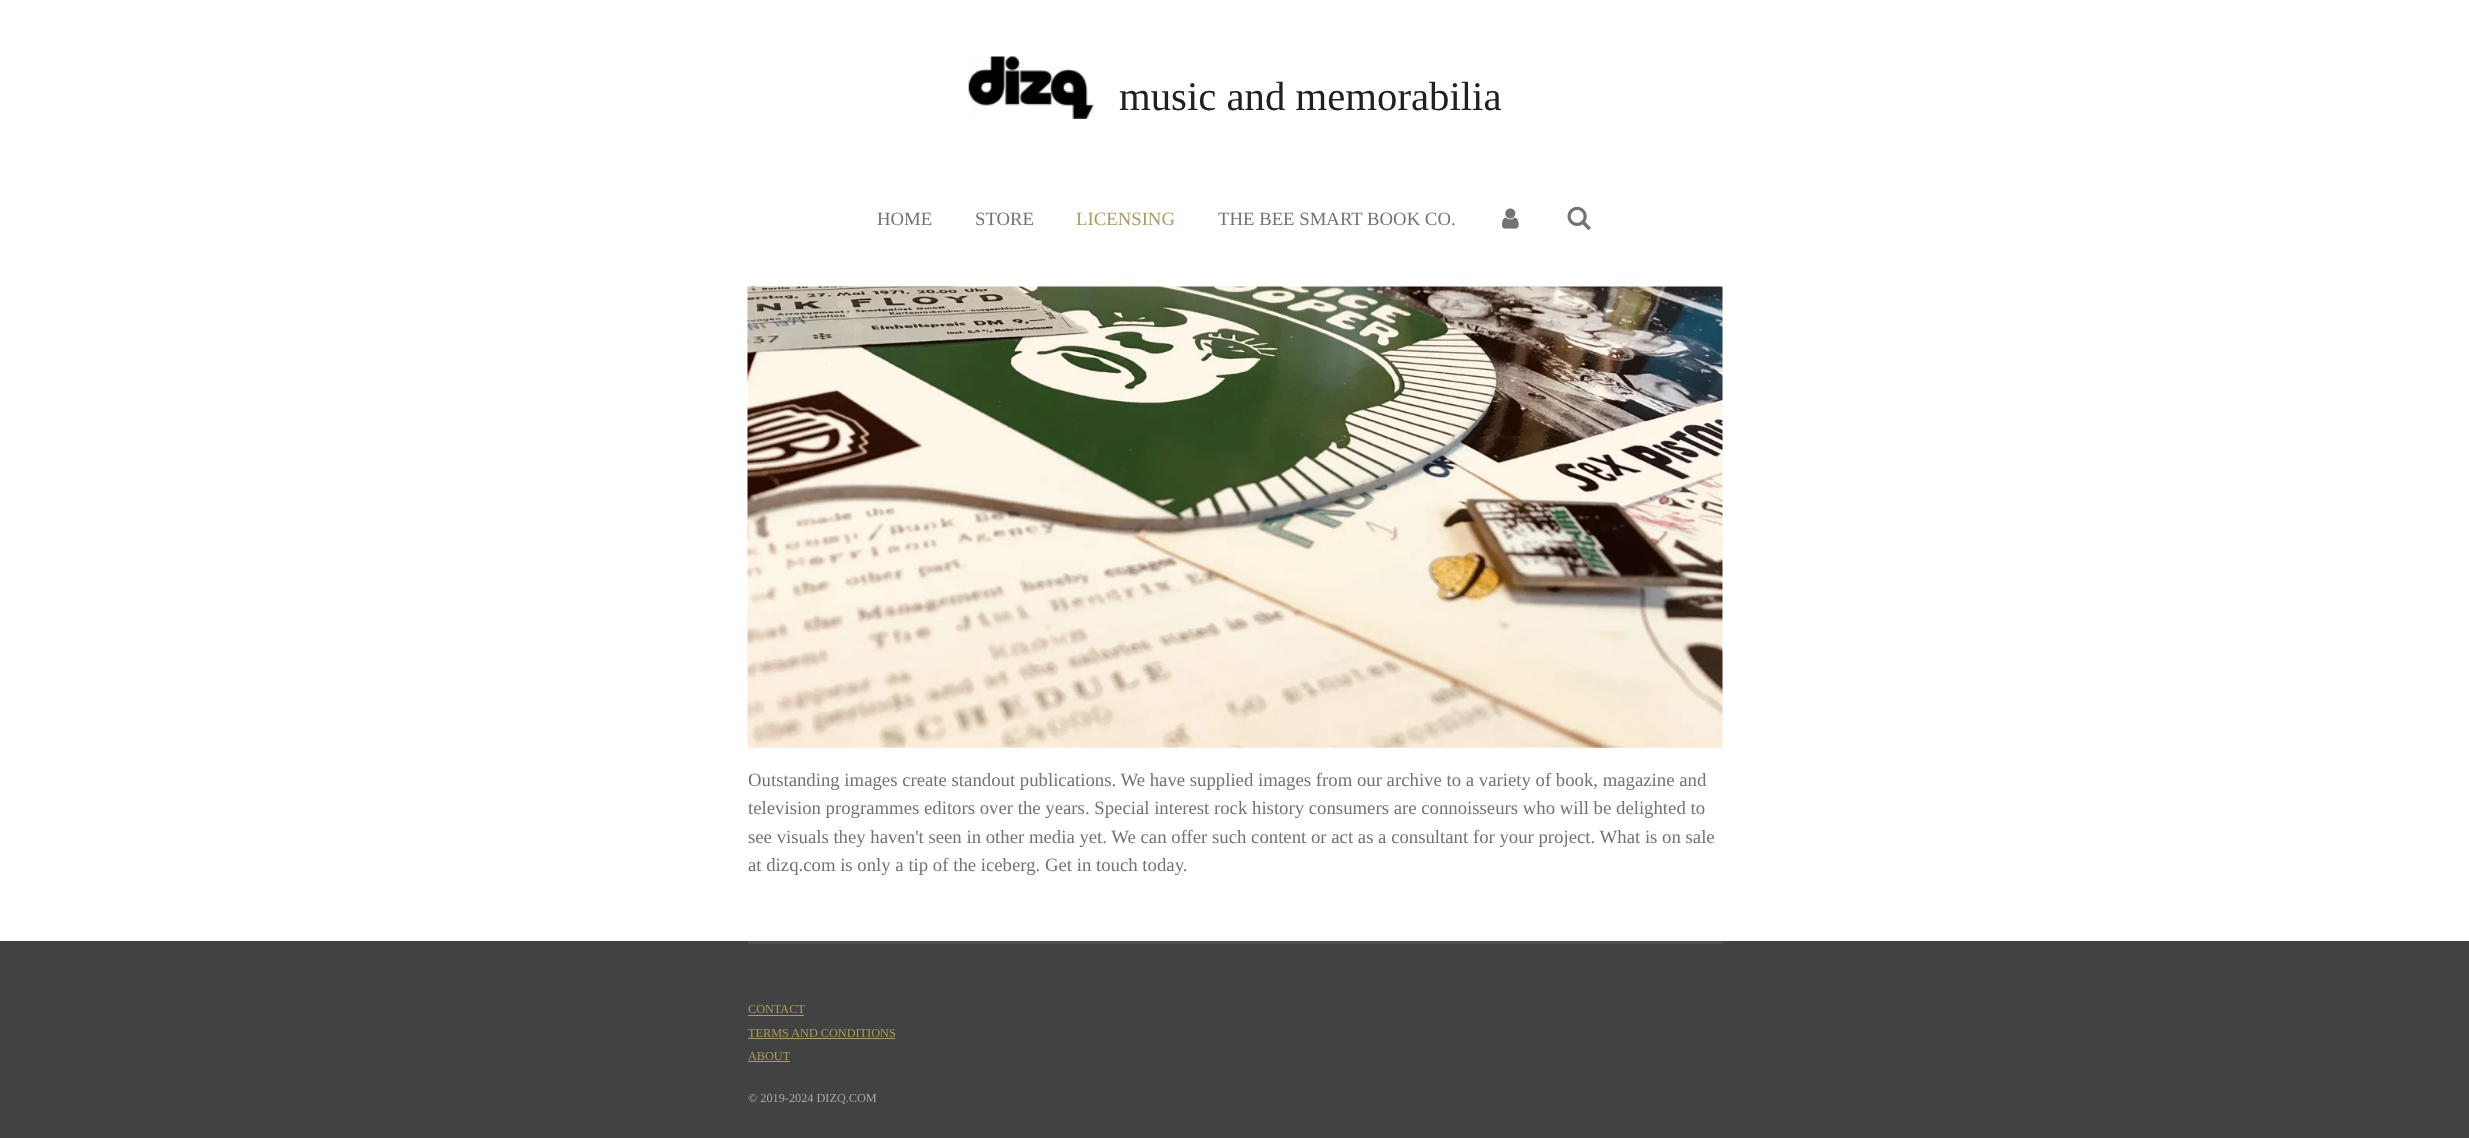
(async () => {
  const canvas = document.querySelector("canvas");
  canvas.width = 2469;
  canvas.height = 1138;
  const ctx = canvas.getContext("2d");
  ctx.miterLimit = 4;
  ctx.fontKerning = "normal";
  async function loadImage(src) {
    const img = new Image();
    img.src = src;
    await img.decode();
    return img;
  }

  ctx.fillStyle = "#ffffff";
  ctx.fillRect(0, 0, 2469, 1138);
  ctx.drawImage(await loadImage("img/1.png"), 968, 56, 126, 63);
  ctx.drawImage(await loadImage("img/2.png"), 1501, 208, 18, 21);
  ctx.drawImage(await loadImage("img/3.png"), 1567, 206, 24, 25);
  ctx.drawImage(await loadImage("img/4.png"), 747, 286, 976, 462);
  for (const [x, y, w, h, color] of [
    [0, 941, 2469, 197, "#424242"],
    [748, 941, 975, 3, "#524f47"],
    [748, 1015, 56, 1, "#ae9a64"],
    [748, 1038, 147, 1, "#ae9a64"],
    [748, 1061, 42, 1, "#ae9a64"],
  ]) {
    ctx.fillStyle = color;
    ctx.fillRect(x, y, w, h);
  }
  ctx.font = "40.75px Liberation Serif";
  ctx.fillStyle = "#202020";
  ctx.fillText("music and memorabilia", 1119, 110);
  ctx.font = "18.75px Liberation Serif";
  ctx.fillStyle = "#737373";
  ctx.fillText("HOME", 877, 225);
  ctx.fillText("STORE", 975, 225);
  ctx.fillStyle = "#ae9a64";
  ctx.fillText("LICENSING", 1076, 225);
  ctx.fillStyle = "#737373";
  for (const [text, x, y] of [
    ["THE BEE SMART BOOK CO.", 1218, 225],
    ["Outstanding images create standout publications. We have supplied images from our archive to a variety of book, magazine and", 748, 786],
    ["television programmes editors over the years. Special interest rock history consumers are connoisseurs who will be delighted to", 748, 814],
    ["see visuals they haven't seen in other media yet. We can offer such content or act as a consultant for your project. What is on sale", 748, 843],
    ["at dizq.com is only a tip of the iceberg. Get in touch today.", 748, 871],
  ]) {
    ctx.fillText(text, x, y);
  }
  ctx.font = "12.25px Liberation Serif";
  ctx.fillStyle = "#ae9a64";
  for (const [text, x, y] of [
    ["CONTACT", 748, 1013],
    ["TERMS AND CONDITIONS", 748, 1037],
    ["ABOUT", 748, 1060],
  ]) {
    ctx.fillText(text, x, y);
  }
  ctx.fillStyle = "#a8a8a8";
  ctx.fillText("© 2019-2024 DIZQ.COM", 748, 1102);
})();
